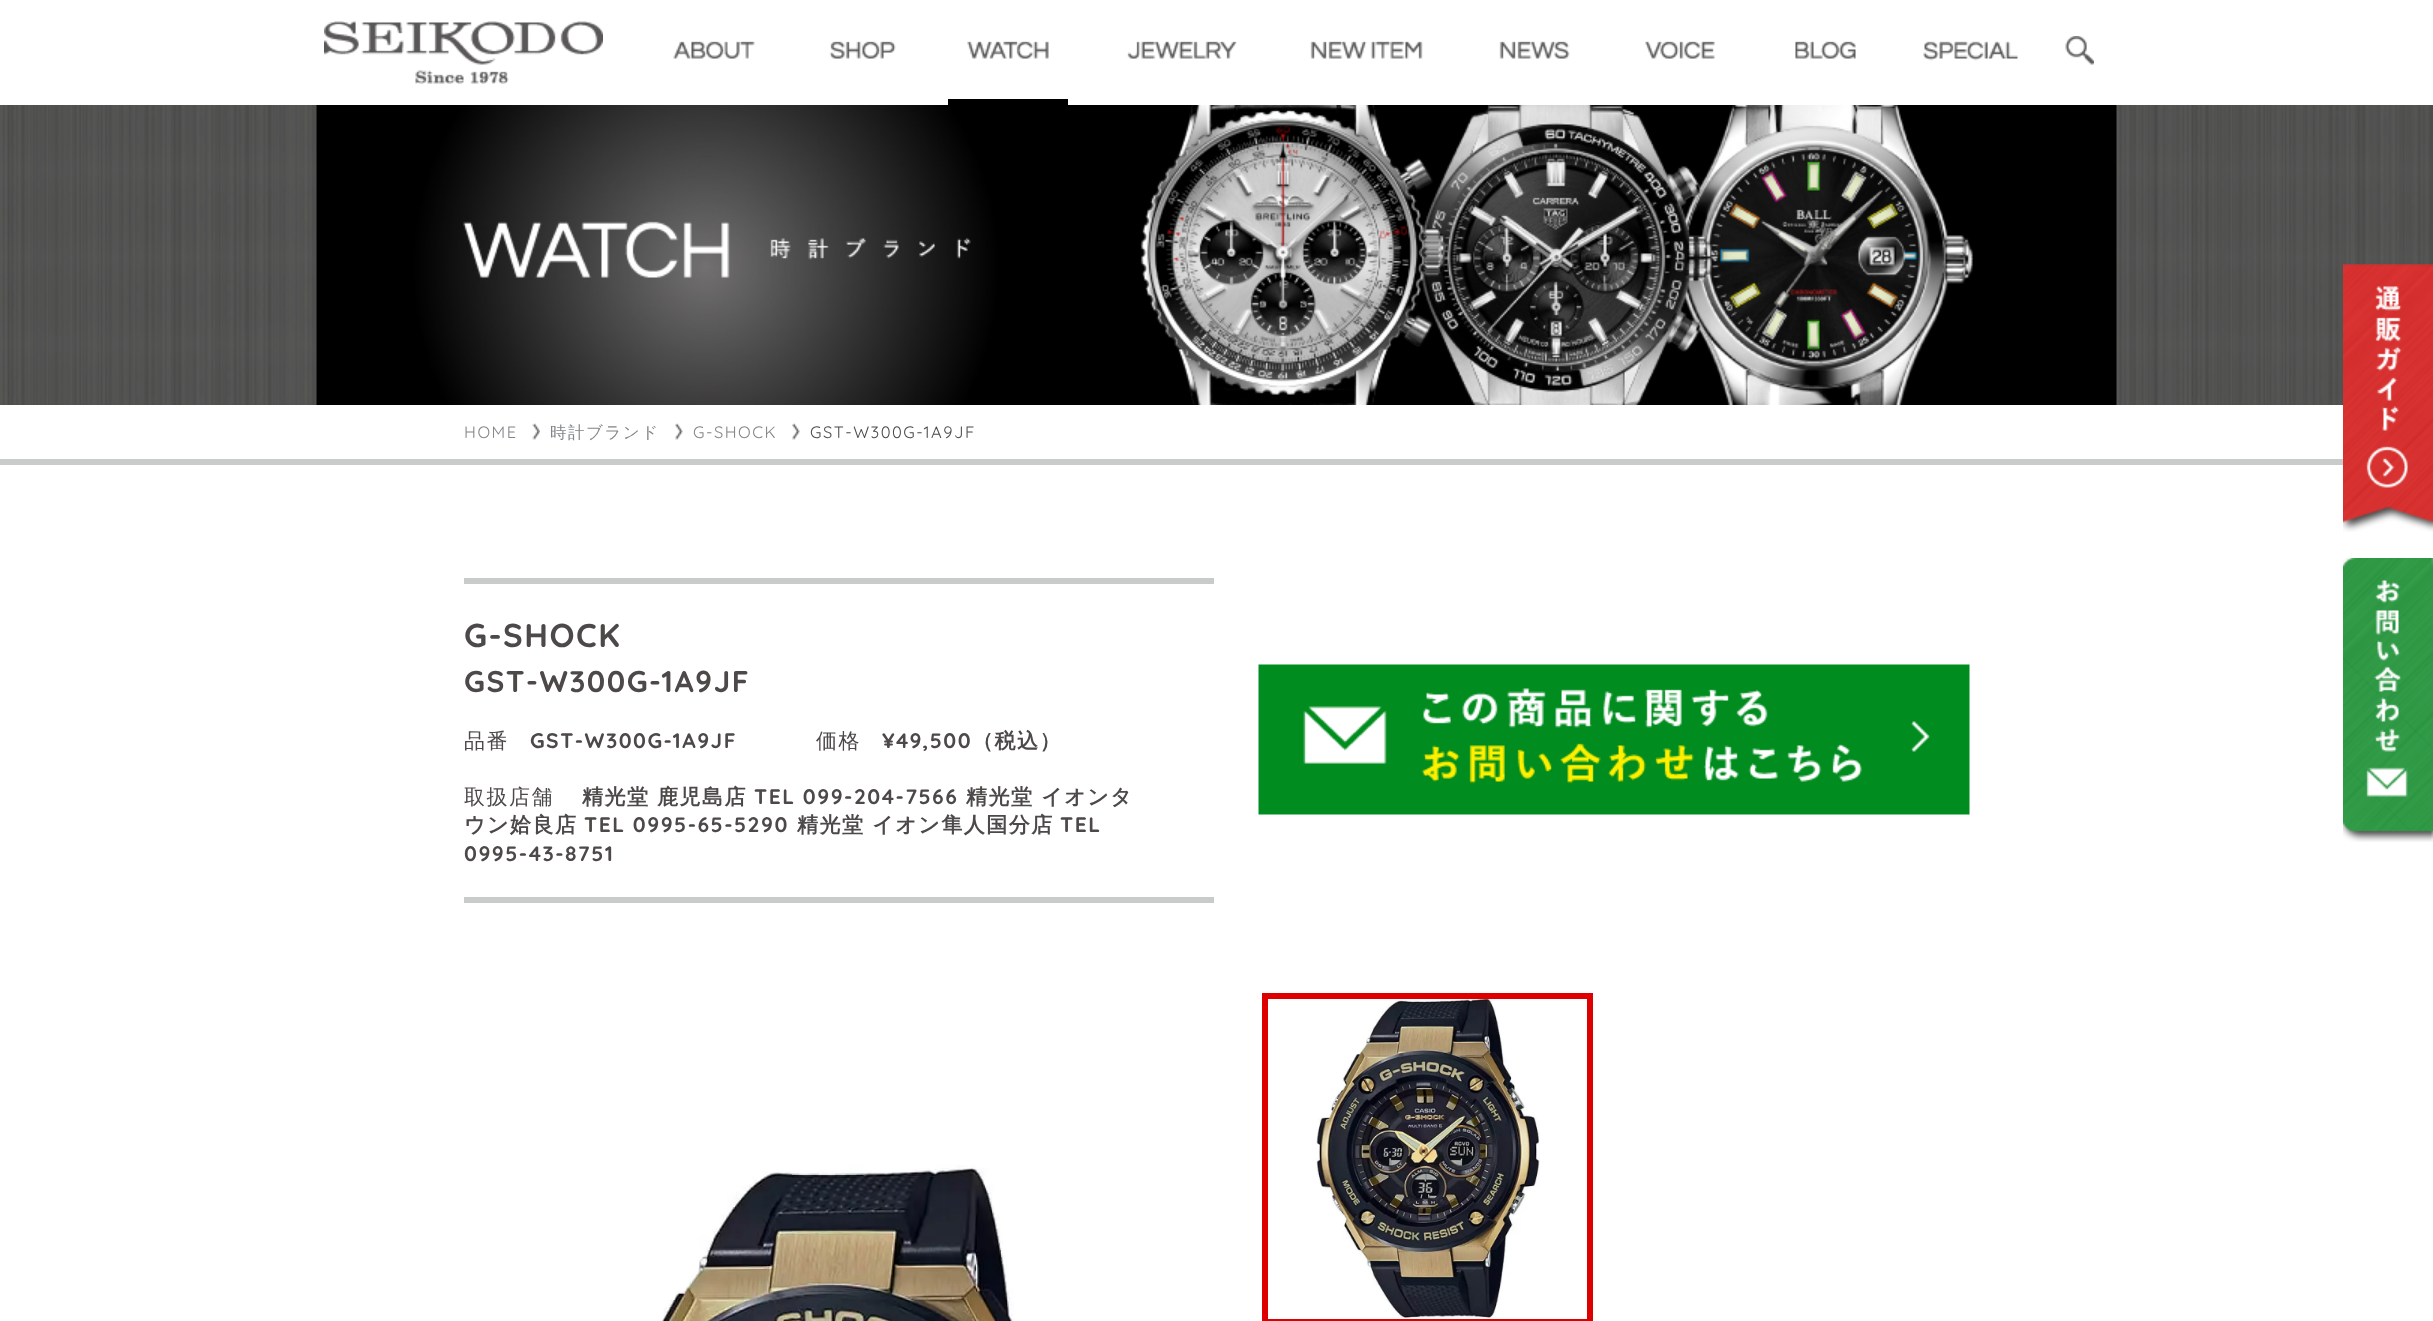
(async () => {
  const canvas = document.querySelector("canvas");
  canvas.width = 2433;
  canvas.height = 1321;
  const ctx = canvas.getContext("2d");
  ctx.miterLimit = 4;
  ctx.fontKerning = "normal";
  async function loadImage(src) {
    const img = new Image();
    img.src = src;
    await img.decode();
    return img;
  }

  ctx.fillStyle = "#ffffff";
  ctx.fillRect(0, 0, 2433, 1321);
  ctx.drawImage(await loadImage("img/1.png"), 324, 21, 279, 63);
  ctx.drawImage(await loadImage("img/2.png"), 673, 41, 82, 18);
  ctx.drawImage(await loadImage("img/3.png"), 829, 41, 67, 18);
  ctx.drawImage(await loadImage("img/4.png"), 967, 41, 82, 18);
  ctx.fillStyle = "#000000";
  ctx.fillRect(948, 99, 120, 6);
  ctx.drawImage(await loadImage("img/5.png"), 1127, 41, 110, 18);
  ctx.drawImage(await loadImage("img/6.png"), 1310, 41, 113, 18);
  ctx.drawImage(await loadImage("img/7.png"), 1499, 41, 71, 18);
  ctx.drawImage(await loadImage("img/8.png"), 1645, 41, 70, 18);
  ctx.drawImage(await loadImage("img/9.png"), 1795, 41, 61, 18);
  ctx.drawImage(await loadImage("img/10.png"), 1923, 41, 95, 20);
  ctx.drawImage(await loadImage("img/11.png"), 2065, 36, 29, 29);
  ctx.drawImage(await loadImage("img/12.png"), 0, 105, 2433, 300);
  ctx.drawImage(await loadImage("img/13.png"), 316, 105, 1801, 300);
  ctx.fillStyle = "#c9caca";
  ctx.fillRect(0, 459, 2343, 6);
  ctx.drawImage(await loadImage("img/14.png"), 532, 423, 8, 17);
  ctx.drawImage(await loadImage("img/15.png"), 675, 423, 8, 17);
  ctx.drawImage(await loadImage("img/15.png"), 792, 423, 8, 17);
  ctx.fillRect(464, 578, 750, 6);
  ctx.fillRect(464, 897, 750, 6);
  ctx.drawImage(await loadImage("img/16.png"), 1258, 664, 712, 151);
  ctx.drawImage(await loadImage("img/17.png"), 661, 1165, 353, 156);
  ctx.drawImage(await loadImage("img/18.png"), 1316, 999, 224, 320);
  ctx.strokeStyle = "#de0000";
  ctx.lineWidth = 6;
  ctx.strokeRect(1265, 996, 325, 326);
  ctx.drawImage(await loadImage("img/19.png"), 2343, 264, 90, 268);
  ctx.drawImage(await loadImage("img/20.png"), 2343, 558, 90, 284);
  ctx.letterSpacing = "1.5px";
  ctx.font = "16.5px Quicksand";
  ctx.fillStyle = "#828689";
  ctx.fillText("HOME", 464, 438);
  ctx.font = "500 16.5px WenQuanYi Zen Hei";
  ctx.fillText("時計ブランド", 550, 438);
  ctx.font = "16.5px Quicksand";
  ctx.fillText("G-SHOCK", 693, 438);
  ctx.fillStyle = "#4c4948";
  ctx.fillText("GST-W300G-1A9JF", 810, 438);
  ctx.font = "bold 33px Quicksand";
  ctx.fillText("G-SHOCK", 464, 647);
  ctx.font = "bold 30px Quicksand";
  ctx.fillText("GST-W300G-1A9JF", 464, 692);
  ctx.font = "500 21px WenQuanYi Zen Hei";
  ctx.fillText("品番", 464, 748);
  ctx.font = "bold 21px Quicksand";
  ctx.fillText("GST-W300G-1A9JF", 530, 748);
  ctx.font = "500 21px WenQuanYi Zen Hei";
  ctx.fillText("価格", 816, 748);
  ctx.font = "bold 21px Quicksand";
  ctx.fillText("¥49,500", 882, 748);
  ctx.font = "bold 21px WenQuanYi Zen Hei";
  ctx.fillText("（税込）", 972, 748);
  ctx.font = "500 21px WenQuanYi Zen Hei";
  ctx.fillText("取扱店舗", 464, 804);
  ctx.font = "bold 21px WenQuanYi Zen Hei";
  ctx.fillText("精光堂", 582, 804);
  ctx.fillText("鹿児島店", 657, 804);
  ctx.font = "bold 21px Quicksand";
  ctx.fillText("TEL 099-204-7566", 754, 804);
  ctx.font = "bold 21px WenQuanYi Zen Hei";
  ctx.fillText("精光堂 イオンタ", 966, 804);
  ctx.fillText("ウン姶良店", 464, 832);
  ctx.font = "bold 21px Quicksand";
  ctx.fillText("TEL 0995-65-5290", 584, 832);
  ctx.font = "bold 21px WenQuanYi Zen Hei";
  ctx.fillText("精光堂 イオン隼人国分店", 797, 832);
  ctx.font = "bold 21px Quicksand";
  ctx.fillText("TEL", 1060, 832);
  ctx.fillText("0995-43-8751", 464, 861);
})();
